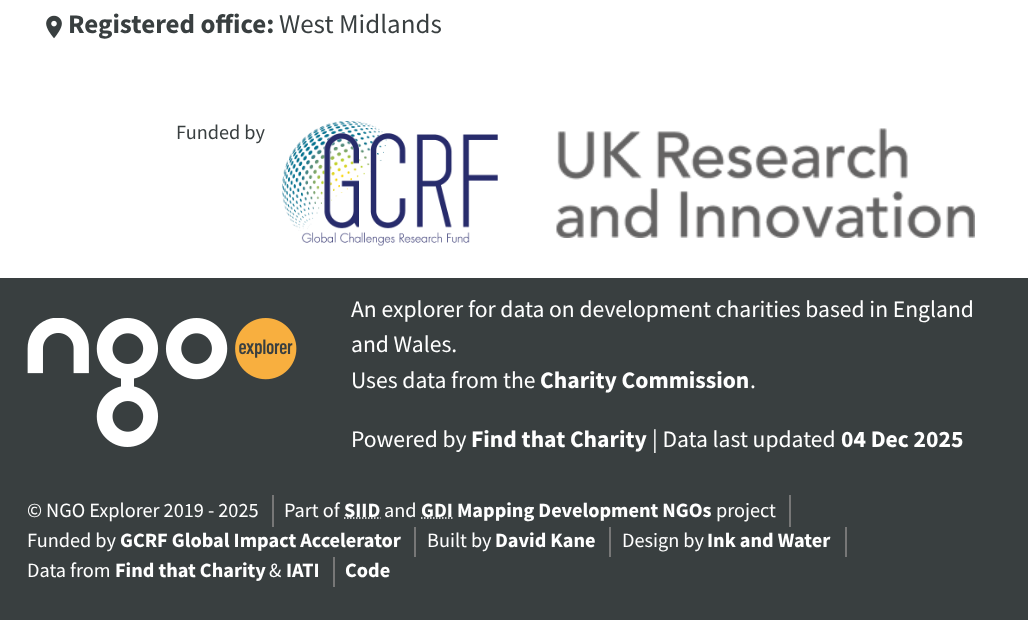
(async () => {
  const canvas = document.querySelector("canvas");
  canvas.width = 1028;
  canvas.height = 620;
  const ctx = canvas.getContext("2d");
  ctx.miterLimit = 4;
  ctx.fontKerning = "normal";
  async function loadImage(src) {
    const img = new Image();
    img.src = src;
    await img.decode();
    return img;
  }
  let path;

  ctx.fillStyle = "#ffffff";
  ctx.fillRect(0, 0, 1028, 620);
  ctx.drawImage(await loadImage("img/1.png"), 46, 15, 16, 24);
  ctx.drawImage(await loadImage("img/2.png"), 282, 121, 216, 125);
  ctx.drawImage(await loadImage("img/3.png"), 556, 128, 419, 110);
  ctx.fillStyle = "#393f40";
  ctx.fillRect(0, 278, 1028, 342);
  ctx.drawImage(await loadImage("img/4.png"), 27, 318, 270, 129);
  ctx.fillStyle = "#777777";
  ctx.fillRect(272, 495, 2, 32);
  ctx.fillRect(789, 495, 2, 32);
  path = new Path2D("M344 518H380.5");
  ctx.strokeStyle = "#ffffff";
  ctx.lineWidth = 1.5;
  ctx.setLineDash([1.5, 1.5]);
  ctx.stroke(path);
  path = new Path2D("M421 518H453");
  ctx.stroke(path);
  for (const [x, y, w, h, color] of [
    [414, 527, 2, 30, "#777777"],
    [609, 527, 2, 30, "#777777"],
    [845, 527, 2, 30, "#777777"],
    [333, 557, 2, 30, "#777777"],
  ]) {
    ctx.fillStyle = color;
    ctx.fillRect(x, y, w, h);
  }
  ctx.font = "bold 27px Source Sans Pro";
  ctx.fillStyle = "#393f40";
  ctx.fillText("Registered office:", 68, 33);
  ctx.font = "27px Source Sans Pro";
  ctx.fillText("West Midlands", 279, 33);
  ctx.font = "20.25px Source Sans Pro";
  ctx.fillText("Funded by", 176, 139);
  ctx.font = "23.6px Source Sans Pro";
  ctx.fillStyle = "#ffffff";
  for (const [text, x, y] of [
    ["An explorer for data on development charities based in England", 351, 317],
    ["and Wales.", 351, 352],
    ["Uses data from the", 351, 388],
  ]) {
    ctx.fillText(text, x, y);
  }
  ctx.font = "bold 23.6px Source Sans Pro";
  ctx.fillText("Charity Commission", 540, 388);
  ctx.font = "23.6px Source Sans Pro";
  ctx.fillText(".", 750, 388);
  ctx.fillText("Powered by", 351, 447);
  ctx.font = "bold 23.6px Source Sans Pro";
  ctx.fillText("Find that Charity", 471, 447);
  ctx.font = "23.6px Source Sans Pro";
  ctx.fillText("| Data last updated", 652, 447);
  ctx.font = "bold 23.6px Source Sans Pro";
  ctx.fillText("04 Dec 2025", 841, 447);
  ctx.font = "20.25px Source Sans Pro";
  ctx.fillText("© NGO Explorer 2019 - 2025", 27, 517);
  ctx.fillText("Part of", 284, 517);
  ctx.font = "bold 20.25px Source Sans Pro";
  ctx.fillText("SIID", 344, 517);
  ctx.font = "20.25px Source Sans Pro";
  ctx.fillText("and", 384, 517);
  ctx.font = "bold 20.25px Source Sans Pro";
  ctx.fillText("GDI Mapping Development NGOs", 421, 517);
  ctx.font = "20.25px Source Sans Pro";
  ctx.fillText("project", 716, 517);
  ctx.fillText("Funded by", 27, 547);
  ctx.font = "bold 20.25px Source Sans Pro";
  ctx.fillText("GCRF Global Impact Accelerator", 120, 547);
  ctx.font = "20.25px Source Sans Pro";
  ctx.fillText("Built by", 427, 547);
  ctx.font = "bold 20.25px Source Sans Pro";
  ctx.fillText("David Kane", 495, 547);
  ctx.font = "20.25px Source Sans Pro";
  ctx.fillText("Design by", 622, 547);
  ctx.font = "bold 20.25px Source Sans Pro";
  ctx.fillText("Ink and Water", 707, 547);
  ctx.font = "20.25px Source Sans Pro";
  ctx.fillText("Data from", 27, 577);
  ctx.font = "bold 20.25px Source Sans Pro";
  ctx.fillText("Find that Charity", 115, 577);
  ctx.font = "20.25px Source Sans Pro";
  ctx.fillText("&", 269, 577);
  ctx.font = "bold 20.25px Source Sans Pro";
  ctx.fillText("IATI", 286, 577);
  ctx.fillText("Code", 345, 577);
})();
